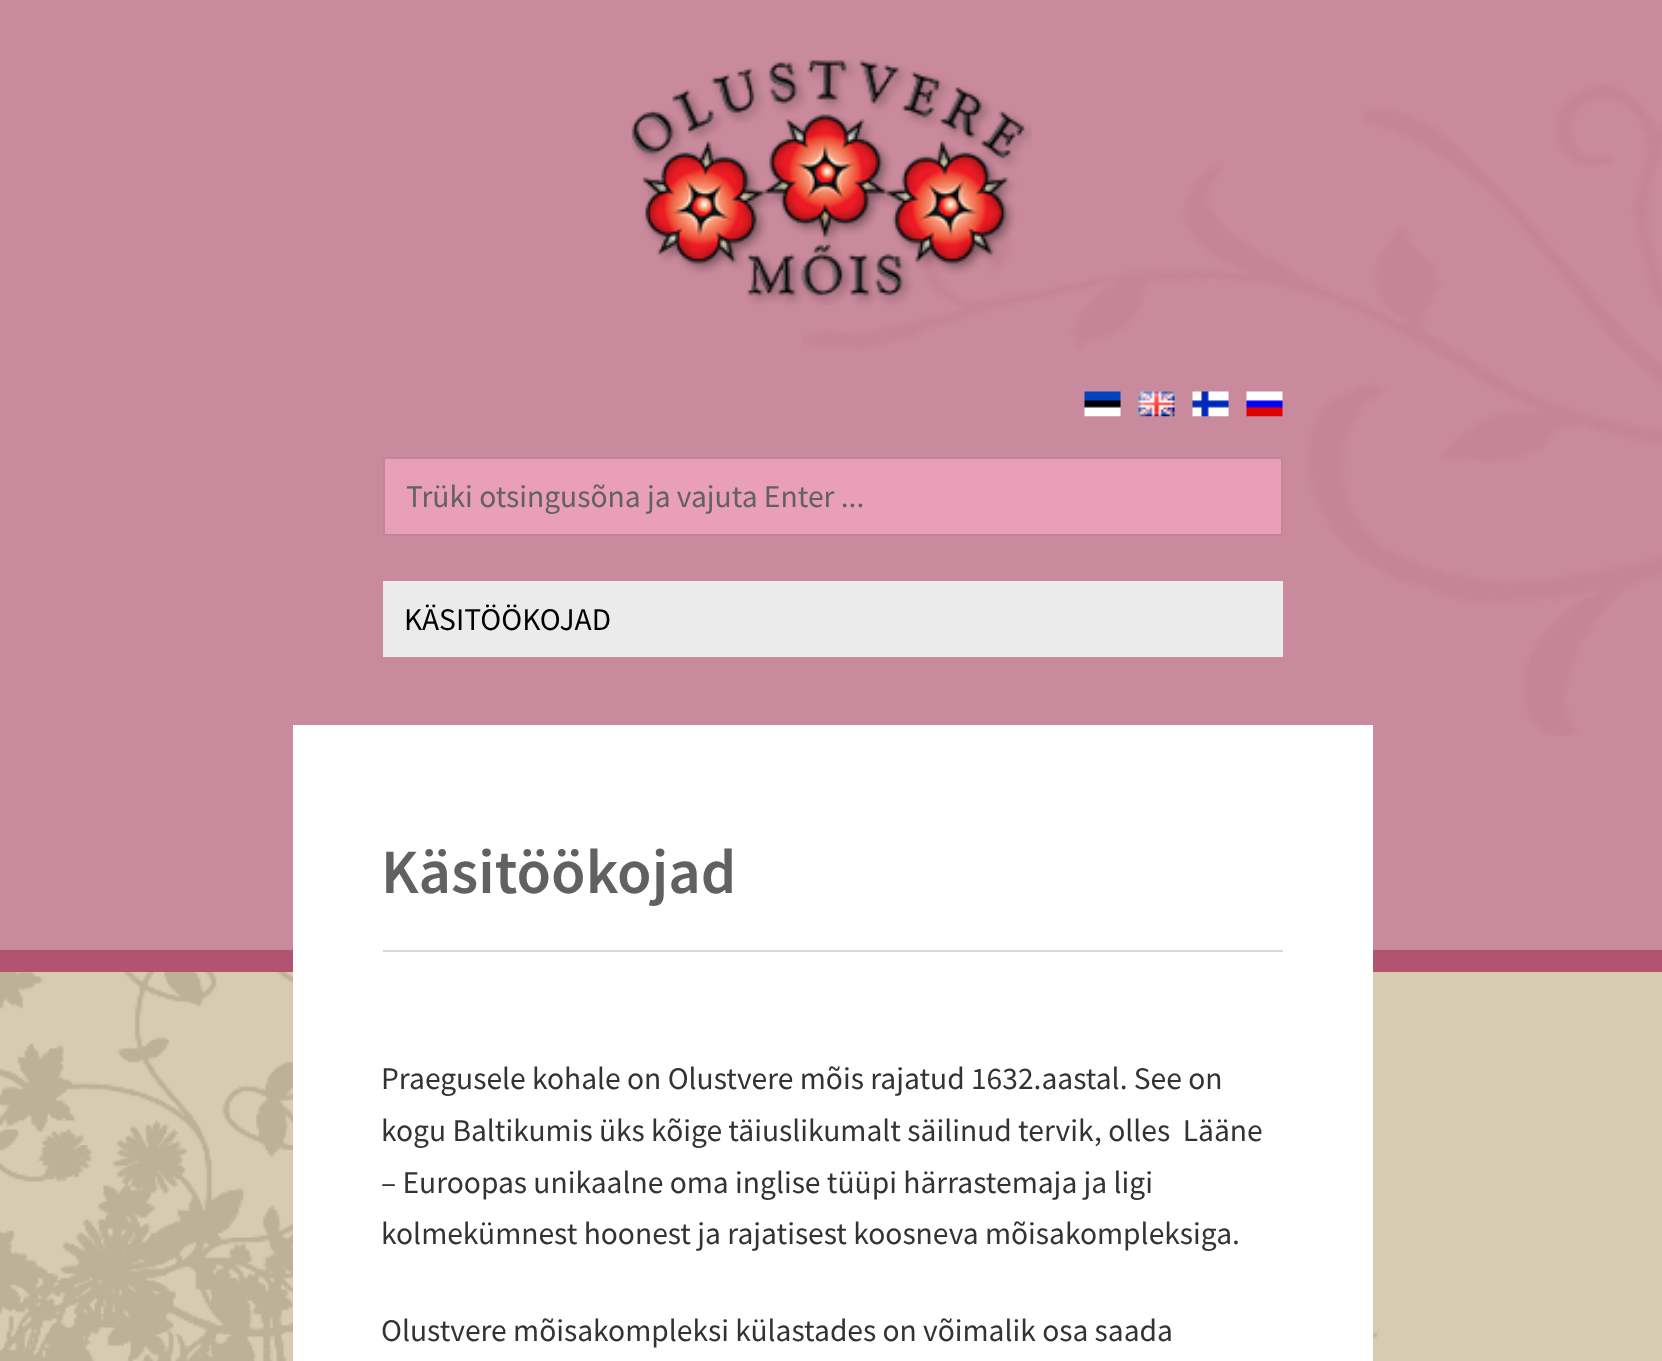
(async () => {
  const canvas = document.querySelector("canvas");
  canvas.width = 1662;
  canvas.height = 1361;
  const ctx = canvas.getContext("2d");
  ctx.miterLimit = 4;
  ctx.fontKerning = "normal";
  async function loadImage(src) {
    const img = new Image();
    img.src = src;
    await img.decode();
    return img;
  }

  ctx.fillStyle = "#d7ccb1";
  ctx.fillRect(0, 0, 1662, 1361);
  ctx.drawImage(await loadImage("img/1.png"), 0, 972, 1381, 389);
  ctx.fillStyle = "#c98a9d";
  ctx.fillRect(0, 0, 1662, 950);
  ctx.drawImage(await loadImage("img/2.png"), 802, 84, 860, 652);
  ctx.fillStyle = "#b05470";
  ctx.fillRect(0, 950, 1662, 22);
  ctx.drawImage(await loadImage("img/3.png"), 631, 59, 401, 246);
  ctx.drawImage(await loadImage("img/4.png"), 1084, 391, 37, 26);
  ctx.drawImage(await loadImage("img/5.png"), 1138, 391, 37, 26);
  ctx.drawImage(await loadImage("img/6.png"), 1192, 391, 37, 26);
  ctx.drawImage(await loadImage("img/7.png"), 1246, 391, 37, 26);
  ctx.fillStyle = "#e89fb7";
  ctx.beginPath();
  ctx.rect(384, 458, 898, 77);
  ctx.fill();
  ctx.strokeStyle = "#c38699";
  ctx.lineWidth = 2;
  ctx.stroke();
  for (const [x, y, w, h, color] of [
    [383, 581, 900, 76, "#ebebeb"],
    [293, 725, 1080, 636, "#ffffff"],
    [383, 950, 900, 2, "#d9d9d9"],
  ]) {
    ctx.fillStyle = color;
    ctx.fillRect(x, y, w, h);
  }
  ctx.font = "31.5px Source Sans Pro";
  ctx.fillStyle = "#616161";
  ctx.fillText("Trüki otsingusõna ja vajuta Enter ...", 406, 507);
  ctx.fillStyle = "#000000";
  ctx.fillText("KÄSITÖÖKOJAD", 404, 630);
  ctx.font = "600 63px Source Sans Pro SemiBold";
  ctx.fillStyle = "#616161";
  ctx.fillText("Käsitöökojad", 381, 893);
  ctx.font = "31.5px Source Sans Pro";
  ctx.fillStyle = "#333333";
  for (const [text, x, y] of [
    ["Praegusele kohale on Olustvere mõis rajatud 1632.aastal. See on", 381, 1089],
    ["kogu Baltikumis üks kõige täiuslikumalt säilinud tervik, olles  Lääne", 381, 1141],
    ["– Euroopas unikaalne oma inglise tüüpi härrastemaja ja ligi", 381, 1193],
    ["kolmekümnest hoonest ja rajatisest koosneva mõisakompleksiga.", 381, 1244],
    ["Olustvere mõisakompleksi külastades on võimalik osa saada", 381, 1341],
  ]) {
    ctx.fillText(text, x, y);
  }
})();
